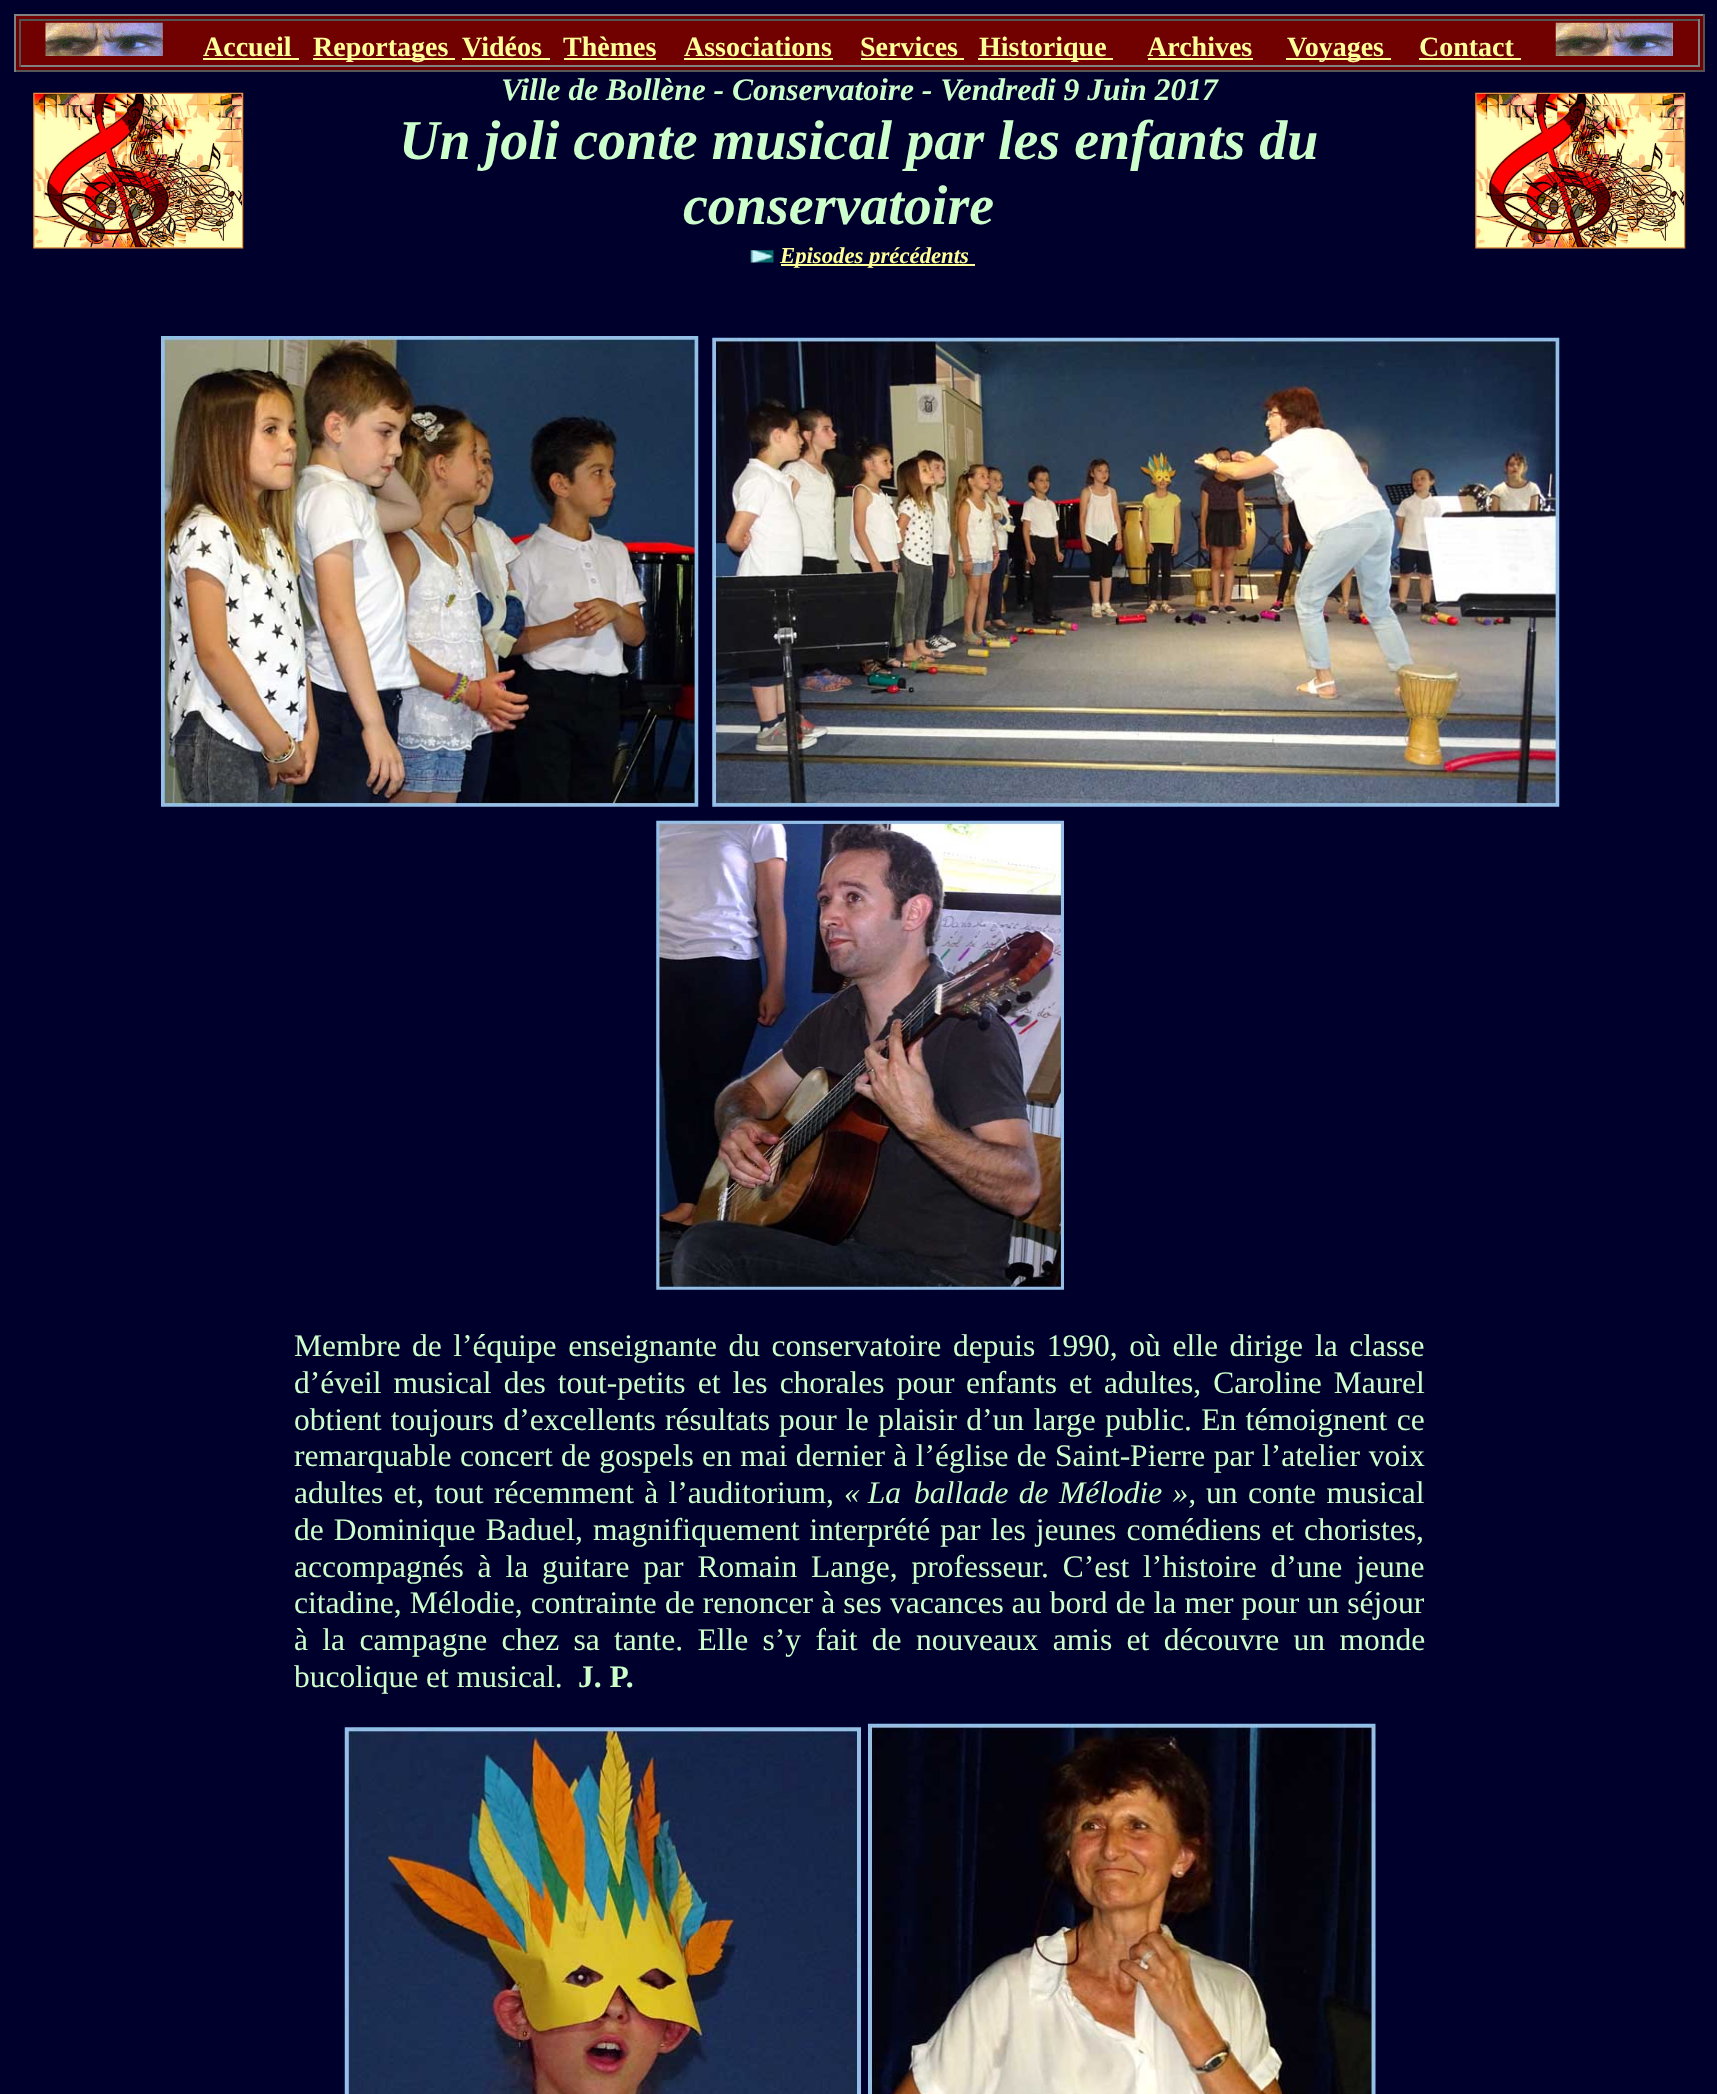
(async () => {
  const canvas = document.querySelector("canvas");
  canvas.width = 1717;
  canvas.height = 2094;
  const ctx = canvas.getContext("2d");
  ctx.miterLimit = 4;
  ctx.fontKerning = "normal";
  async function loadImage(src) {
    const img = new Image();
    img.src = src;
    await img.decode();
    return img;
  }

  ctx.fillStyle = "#00002d";
  ctx.fillRect(0, 0, 1717, 2094);
  for (const [x, y, w, h, color] of [
    [16, 16, 1687, 54, "#710000"],
    [14, 14, 1691, 2, "#808080"],
    [1703, 14, 2, 58, "#555555"],
    [14, 70, 1691, 2, "#555555"],
    [14, 14, 2, 58, "#808080"],
    [19, 19, 1680, 2, "#555555"],
    [1698, 19, 2, 48, "#808080"],
    [19, 65, 1680, 2, "#808080"],
    [19, 19, 2, 48, "#555555"],
  ]) {
    ctx.fillStyle = color;
    ctx.fillRect(x, y, w, h);
  }
  ctx.drawImage(await loadImage("img/1.png"), 45, 22, 118, 34);
  for (const [x, y, w, h, color] of [
    [203, 58, 96, 2, "#ffff99"],
    [313, 58, 142, 2, "#ffff99"],
    [462, 58, 88, 2, "#ffff99"],
    [564, 58, 92, 2, "#ffff99"],
    [684, 58, 149, 2, "#ffff99"],
    [861, 58, 103, 2, "#ffff99"],
    [978, 58, 135, 2, "#ffff99"],
    [1148, 58, 105, 2, "#ffff99"],
    [1286, 58, 105, 2, "#ffff99"],
    [1419, 58, 102, 2, "#ffff99"],
  ]) {
    ctx.fillStyle = color;
    ctx.fillRect(x, y, w, h);
  }
  ctx.drawImage(await loadImage("img/2.png"), 1555, 22, 118, 34);
  ctx.drawImage(await loadImage("img/3.png"), 33, 92, 211, 157);
  ctx.drawImage(await loadImage("img/4.png"), 750, 250, 24, 13);
  ctx.fillRect(781, 264, 194, 2);
  ctx.drawImage(await loadImage("img/5.png"), 1475, 92, 211, 157);
  ctx.drawImage(await loadImage("img/6.png"), 161, 336, 538, 471);
  ctx.drawImage(await loadImage("img/7.png"), 712, 337, 848, 470);
  ctx.drawImage(await loadImage("img/8.png"), 656, 820, 408, 470);
  ctx.drawImage(await loadImage("img/9.png"), 344, 1727, 517, 367);
  ctx.drawImage(await loadImage("img/10.png"), 868, 1723, 508, 371);
  ctx.font = "bold 28px Liberation Serif";
  for (const [text, x, y] of [
    ["Accueil", 203, 56],
    ["Reportages", 313, 56],
    ["Vidéos", 462, 56],
    ["Thèmes", 563, 56],
    ["Associations", 684, 56],
    ["Services", 860, 56],
    ["Historique", 979, 56],
    ["Archives", 1147, 56],
    ["Voyages", 1287, 56],
    ["Contact", 1419, 56],
  ]) {
    ctx.fillText(text, x, y);
  }
  ctx.font = "italic bold 31.5px Liberation Serif";
  ctx.fillStyle = "#ccffcc";
  ctx.fillText("Ville de Bollène - Conservatoire - Vendredi 9 Juin 2017", 501, 100);
  ctx.font = "italic bold 56px Liberation Serif";
  ctx.fillText("Un joli conte musical par les enfants du", 399, 159);
  ctx.fillText("conservatoire", 683, 224);
  ctx.font = "italic bold 22.75px Liberation Serif";
  ctx.fillStyle = "#ffff99";
  ctx.fillText("Episodes précédents", 780, 263);
  ctx.font = "31.5px Liberation Serif";
  ctx.fillStyle = "#ccffcc";
  ctx.fillText("Membre", 294, 1356);
  ctx.wordSpacing = "3.75px";
  ctx.fillText("de l’équipe enseignante du conservatoire depuis 1990, où elle dirige", 412, 1356);
  ctx.fillText("la classe", 1315, 1356);
  ctx.wordSpacing = "4.25px";
  ctx.fillText("d’éveil musical des tout-petits et les chorales pour", 294, 1393);
  ctx.fillText("enfants et adultes, Caroline Maurel", 966, 1393);
  ctx.wordSpacing = "1.5px";
  ctx.fillText("obtient toujours d’excellents résultats", 294, 1430);
  ctx.fillText("pour le plaisir d’un large public. En témoignent ce", 779, 1430);
  ctx.wordSpacing = "0px";
  ctx.fillText("remarquable", 294, 1466);
  ctx.wordSpacing = "0.5px";
  ctx.fillText("concert de gospels en mai dernier à l’église de Saint-Pierre par", 460, 1466);
  ctx.wordSpacing = "1px";
  ctx.fillText("l’atelier voix", 1262, 1466);
  ctx.wordSpacing = "2.5px";
  ctx.fillText("adultes et, tout récemment à l’auditorium,", 294, 1503);
  ctx.wordSpacing = "0px";
  ctx.font = "italic 31.5px Liberation Serif";
  ctx.fillText("« La", 844, 1503);
  ctx.wordSpacing = "2.5px";
  ctx.fillText("ballade de Mélodie »,", 914, 1503);
  ctx.font = "31.5px Liberation Serif";
  ctx.fillText("un conte musical", 1206, 1503);
  ctx.wordSpacing = "2.25px";
  ctx.fillText("de Dominique Baduel,", 294, 1540);
  ctx.fillText("magnifiquement interprété par les jeunes comédiens et choristes,", 593, 1540);
  ctx.wordSpacing = "6px";
  ctx.fillText("accompagnés à la guitare par Romain Lange, professeur. C’est", 294, 1577);
  ctx.fillText("l’histoire d’une jeune", 1143, 1577);
  ctx.wordSpacing = "0.3px";
  ctx.fillText("citadine, Mélodie, contrainte de renoncer à ses vacances au bord de la mer pour un séjour", 294, 1613);
  ctx.wordSpacing = "6.5px";
  ctx.fillText("à la campagne chez sa", 294, 1650);
  ctx.fillText("tante. Elle s’y fait de nouveaux amis et découvre un monde", 614, 1650);
  ctx.wordSpacing = "0px";
  ctx.fillText("bucolique et musical.", 294, 1687);
  ctx.font = "bold 31.5px Liberation Serif";
  ctx.fillText("J. P.", 578, 1687);
})();
